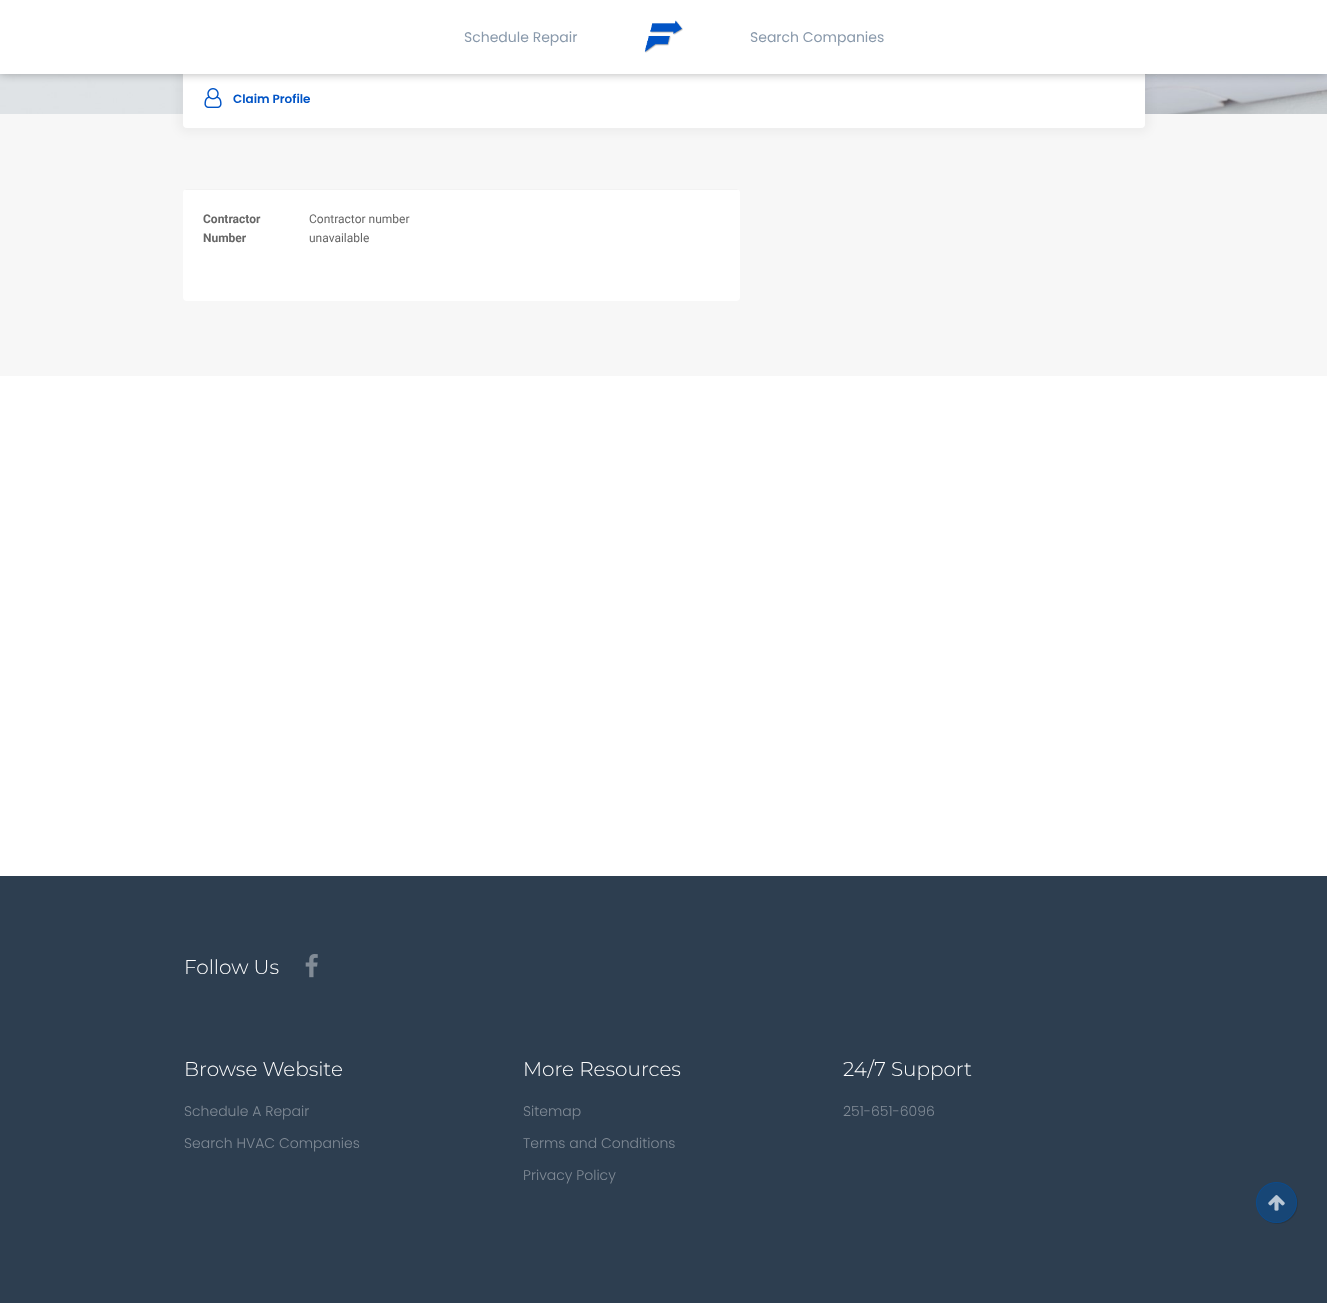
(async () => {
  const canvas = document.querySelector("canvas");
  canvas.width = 1327;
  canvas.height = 1303;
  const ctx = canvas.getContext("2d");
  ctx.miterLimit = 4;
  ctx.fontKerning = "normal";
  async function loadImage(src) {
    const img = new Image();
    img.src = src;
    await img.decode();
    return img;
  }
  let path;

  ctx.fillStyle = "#ffffff";
  ctx.fillRect(0, 0, 1327, 1303);
  ctx.drawImage(await loadImage("img/2.png"), 0, 74, 1327, 40);
  ctx.fillStyle = "#f7f7f7";
  ctx.fillRect(0, 114, 1327, 262);
  ctx.fillStyle = "rgba(0, 0, 0, 0.04)";
  ctx.filter = "blur(5px)";
  ctx.beginPath();
  ctx.roundRect(178, -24, 972, 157, 9);
  ctx.fill();
  ctx.filter = "none";
  ctx.fillStyle = "#ffffff";
  ctx.beginPath();
  ctx.roundRect(183, -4, 962, 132, 4);
  ctx.fill();
  ctx.drawImage(await loadImage("img/3.png"), 204, 88, 18, 20);
  ctx.fillStyle = "rgba(0, 0, 0, 0.3)";
  ctx.filter = "blur(5px)";
  ctx.beginPath();
  ctx.rect(0, 0, 1327, 74);
  ctx.fill();
  ctx.filter = "none";
  ctx.fillStyle = "#ffffff";
  ctx.fillRect(0, 0, 1327, 74);
  ctx.drawImage(await loadImage("img/1.png"), 644, 20, 39, 33);
  ctx.beginPath();
  ctx.roundRect(183, 189, 557, 112, 4);
  ctx.fill();
  ctx.save();
  ctx.beginPath();
  ctx.roundRect(183, 189, 557, 112, 4);
  ctx.clip();
  ctx.fillStyle = "#f2f2f2";
  ctx.fillRect(183, 189, 557, 1);
  ctx.restore();
  ctx.fillStyle = "#2d3e50";
  ctx.fillRect(0, 876, 1327, 427);
  ctx.drawImage(await loadImage("img/4.png"), 305, 954, 13, 24);
  ctx.fillStyle = "#283644";
  path = new Path2D("M1262.5 1217.5C1270.5 1226 1284 1226 1292 1218C1300 1210 1300 1196.5 1291.5 1188.5C1299 1196.5 1299 1209 1291 1217C1283 1225 1270.5 1225 1262.5 1217.5Z");
  ctx.fill(path);
  ctx.fillStyle = "rgba(1, 80, 159, 0.49)";
  ctx.beginPath();
  ctx.arc(1276.5, 1202.5, 20.5, 0, Math.PI * 2);
  ctx.fill();
  ctx.beginPath();
  ctx.arc(1276.5, 1202.5, 20, 0, Math.PI * 2);
  ctx.strokeStyle = "rgba(1, 80, 159, 0.53)";
  ctx.stroke();
  ctx.drawImage(await loadImage("img/5.png"), 1268, 1195, 17, 16);
  ctx.font = "14px Poppins";
  ctx.fillStyle = "#8999ab";
  ctx.fillText("Schedule Repair", 464, 42);
  ctx.fillText("Search Companies", 750, 42);
  ctx.font = "600 12px Poppins";
  ctx.fillStyle = "#0154c6";
  ctx.fillText("Claim Profile", 233, 103);
  ctx.font = "bold 12px Roboto";
  ctx.fillStyle = "#666666";
  ctx.fillText("Contractor", 203, 223);
  ctx.fillText("Number", 203, 242);
  ctx.font = "12px Roboto";
  ctx.fillText("Contractor number", 309, 223);
  ctx.fillText("unavailable", 309, 242);
  ctx.font = "300 20px Montserrat";
  ctx.fillStyle = "#ffffff";
  ctx.fillText("Follow Us", 184, 974);
  ctx.fillText("Browse Website", 184, 1076);
  ctx.font = "300 14px Poppins";
  ctx.fillStyle = "#818b96";
  ctx.fillText("Schedule A Repair", 184, 1116);
  ctx.fillText("Search HVAC Companies", 184, 1148);
  ctx.font = "300 20px Montserrat";
  ctx.fillStyle = "#ffffff";
  ctx.fillText("More Resources", 523, 1076);
  ctx.font = "300 14px Poppins";
  ctx.fillStyle = "#818b96";
  for (const [text, x, y] of [
    ["Sitemap", 523, 1116],
    ["Terms and Conditions", 523, 1148],
    ["Privacy Policy", 523, 1180],
  ]) {
    ctx.fillText(text, x, y);
  }
  ctx.font = "300 20px Montserrat";
  ctx.fillStyle = "#ffffff";
  ctx.fillText("24/7 Support", 843, 1076);
  ctx.font = "300 14px Poppins";
  ctx.fillStyle = "#818b96";
  ctx.fillText("251-651-6096", 843, 1116);
})();
